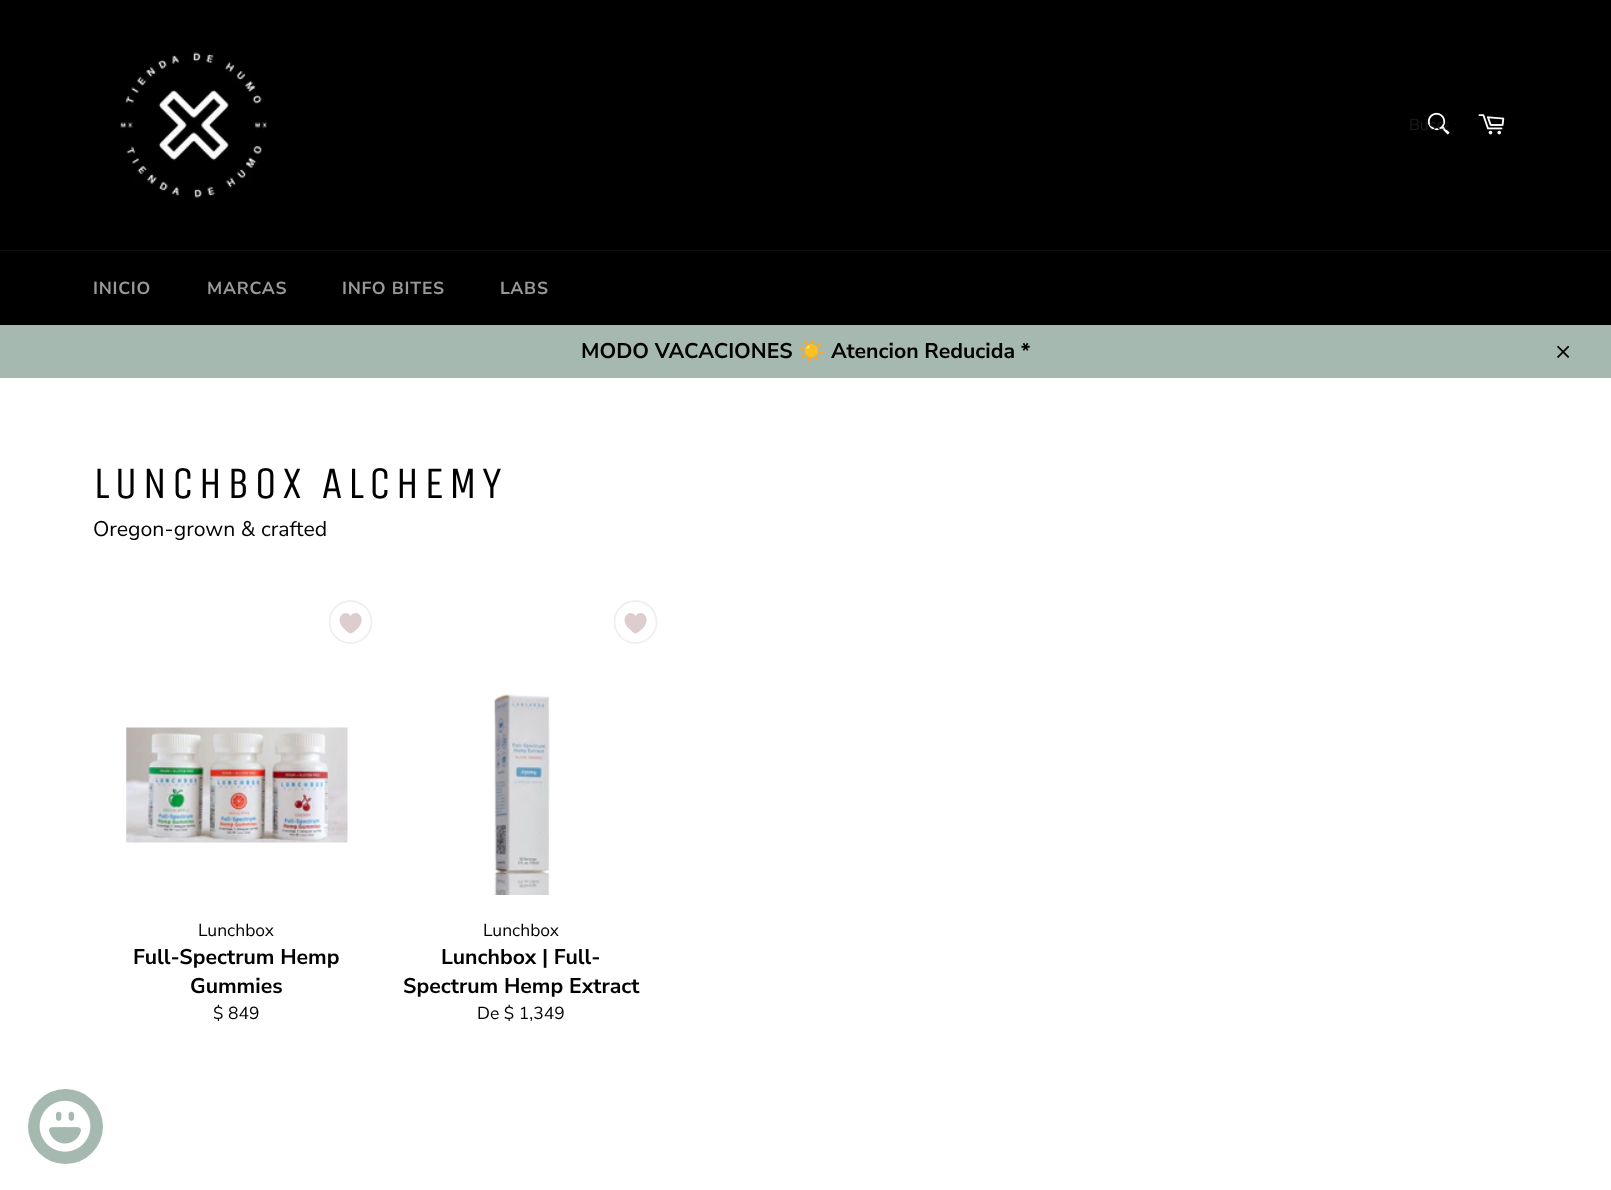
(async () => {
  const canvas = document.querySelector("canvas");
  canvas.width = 1611;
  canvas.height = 1190;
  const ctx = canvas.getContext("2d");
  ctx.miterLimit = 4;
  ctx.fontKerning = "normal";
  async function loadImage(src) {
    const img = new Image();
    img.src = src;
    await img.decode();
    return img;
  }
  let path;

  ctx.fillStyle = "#ffffff";
  ctx.fillRect(0, 0, 1611, 1190);
  ctx.fillStyle = "#000000";
  ctx.fillRect(0, 0, 1611, 250);
  ctx.drawImage(await loadImage("img/1.png"), 120, 50, 147, 148);
  ctx.drawImage(await loadImage("img/2.png"), 1427, 112, 23, 23);
  ctx.drawImage(await loadImage("img/3.png"), 1478, 114, 27, 21);
  for (const [x, y, w, h, color] of [
    [0, 251, 1611, 74, "#000000"],
    [0, 250, 1611, 1, "#0d0d0d"],
    [0, 325, 1611, 53, "#a5b9b0"],
  ]) {
    ctx.fillStyle = color;
    ctx.fillRect(x, y, w, h);
  }
  ctx.drawImage(await loadImage("img/4.png"), 1557, 345, 13, 13);
  ctx.save();
  ctx.beginPath();
  ctx.rect(329, 600, 44, 44);
  ctx.clip();
  ctx.beginPath();
  ctx.arc(350.5, 622, 21, 0, Math.PI * 2);
  ctx.strokeStyle = "#efefef";
  ctx.lineWidth = 1.8;
  ctx.stroke();
  ctx.restore();
  ctx.fillStyle = "#decdcd";
  path = new Path2D("M350.5 633.5C352 633.5 355.5 630.5 356.5 629.5C369 618 355.5 607.5 350.5 616C346 607.5 332 618 345 629.5C346 630.5 349 633.5 350.5 633.5Z");
  ctx.fill(path);
  ctx.drawImage(await loadImage("img/5.png"), 126, 727, 222, 116);
  ctx.save();
  ctx.beginPath();
  ctx.rect(614, 600, 44, 44);
  ctx.clip();
  ctx.beginPath();
  ctx.arc(635.5, 622, 21, 0, Math.PI * 2);
  ctx.strokeStyle = "#efefef";
  ctx.lineWidth = 1.8;
  ctx.stroke();
  ctx.restore();
  path = new Path2D("M635.5 633.5C637 633.5 640.5 630.5 641.5 629.5C654 618 640.5 607.5 635.5 616C631 607.5 617 618 630 629.5C631 630.5 634 633.5 635.5 633.5Z");
  ctx.fill(path);
  ctx.drawImage(await loadImage("img/6.png"), 493, 694, 58, 201);
  ctx.fillStyle = "#a5b9b0";
  ctx.beginPath();
  ctx.arc(65.5, 1126.5, 37.5, 0, Math.PI * 2);
  ctx.fill();
  ctx.drawImage(await loadImage("img/7.png"), 39, 1100, 52, 52);
  ctx.save();
  ctx.beginPath();
  ctx.rect(1409, 114, 40, 22);
  ctx.clip();
  ctx.font = "16px Nunito Sans";
  ctx.fillStyle = "#1c1c1c";
  ctx.fillText("Busca", 1409, 130);
  ctx.restore();
  ctx.letterSpacing = "0.75px";
  ctx.font = "bold 17.5px Nunito Sans";
  ctx.fillStyle = "#999999";
  for (const [text, x, y] of [
    ["INICIO", 93, 294],
    ["MARCAS", 207, 294],
    ["INFO BITES", 342, 294],
    ["LABS", 500, 294],
  ]) {
    ctx.fillText(text, x, y);
  }
  ctx.letterSpacing = "0px";
  ctx.font = "bold 21.25px Nunito Sans";
  ctx.fillStyle = "#000000";
  ctx.fillText("MODO VACACIONES", 581, 358);
  ctx.font = "bold 21.25px Noto Color Emoji";
  ctx.fillText("☀️", 798, 358);
  ctx.font = "bold 21.25px Nunito Sans";
  ctx.fillText("Atencion Reducida *", 831, 358);
  ctx.letterSpacing = "4.5px";
  ctx.font = "45px Unica One";
  ctx.fillText("LUNCHBOX ALCHEMY", 93, 498);
  ctx.letterSpacing = "0px";
  ctx.font = "21.25px Nunito Sans";
  ctx.fillText("Oregon-grown & crafted", 93, 536);
  ctx.font = "17.5px Nunito Sans";
  ctx.fillText("Lunchbox", 198, 936);
  ctx.font = "bold 21.25px Nunito Sans";
  ctx.fillText("Full-Spectrum Hemp", 133, 964);
  ctx.fillText("Gummies", 190, 993);
  ctx.font = "17.5px Nunito Sans";
  ctx.fillText("$ 849", 213, 1019);
  ctx.fillText("Lunchbox", 483, 936);
  ctx.font = "bold 21.25px Nunito Sans";
  ctx.fillText("Lunchbox | Full-", 441, 964);
  ctx.fillText("Spectrum Hemp Extract", 403, 993);
  ctx.font = "17.5px Nunito Sans";
  ctx.fillText("De $ 1,349", 477, 1019);
})();
